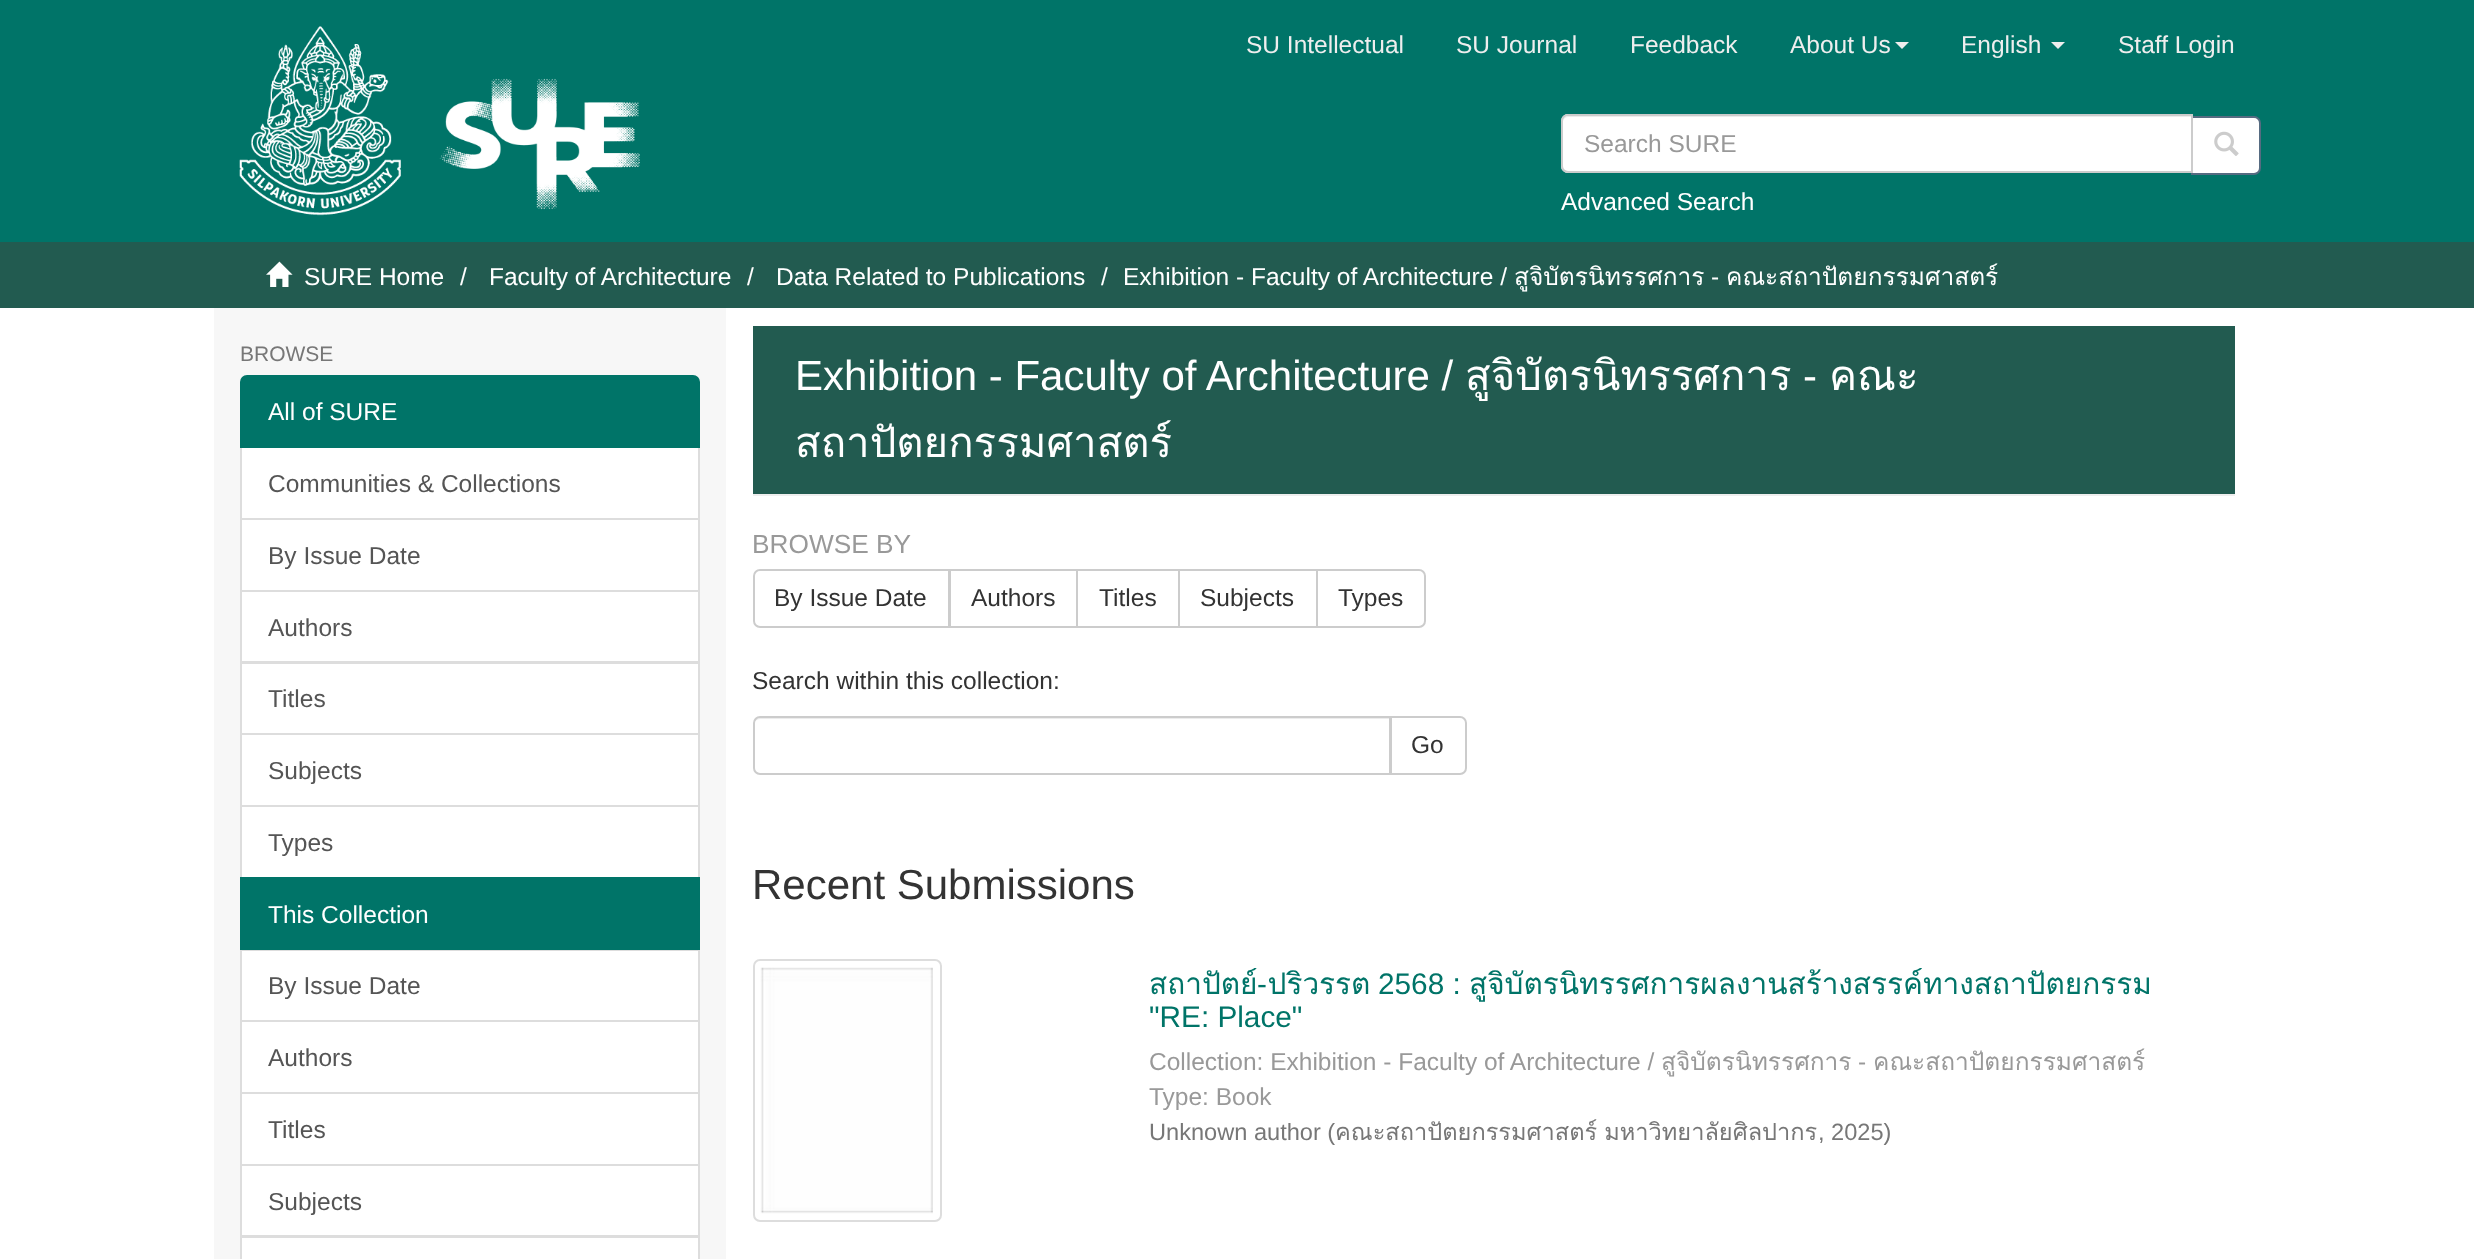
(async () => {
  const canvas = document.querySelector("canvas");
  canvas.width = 2474;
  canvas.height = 1259;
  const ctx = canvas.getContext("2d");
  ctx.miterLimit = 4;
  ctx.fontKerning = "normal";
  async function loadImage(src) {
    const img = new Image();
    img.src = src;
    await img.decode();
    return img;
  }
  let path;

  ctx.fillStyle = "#ffffff";
  ctx.fillRect(0, 0, 2474, 1259);
  ctx.fillStyle = "#007468";
  ctx.fillRect(0, 0, 2474, 242);
  ctx.drawImage(await loadImage("img/1.png"), 239, 26, 162, 190);
  ctx.drawImage(await loadImage("img/2.png"), 439, 78, 201, 132);
  ctx.fillStyle = "#eeeeee";
  path = new Path2D("M1895 42H1909L1902 49Z");
  ctx.fill(path);
  path = new Path2D("M2051 42H2065L2058 49Z");
  ctx.fill(path);
  ctx.fillStyle = "#ffffff";
  ctx.beginPath();
  ctx.roundRect(2192, 117, 68, 57, [0, 6, 6, 0]);
  ctx.fill();
  ctx.strokeStyle = "#566b81";
  ctx.lineWidth = 2;
  ctx.stroke();
  ctx.beginPath();
  ctx.roundRect(1561, 114, 632, 59, [7, 0, 0, 7]);
  ctx.fill();
  ctx.fillStyle = "#ececec";
  path = new Path2D("M1568 117H2191V116H1568C1565 116 1563 119 1563 122C1563 120 1565 117 1568 117Z");
  ctx.fill(path);
  ctx.beginPath();
  ctx.roundRect(1562, 115, 630, 57, [6, 0, 0, 6]);
  ctx.strokeStyle = "#cccccc";
  ctx.stroke();
  ctx.drawImage(await loadImage("img/3.png"), 2214, 131, 25, 25);
  ctx.fillStyle = "#225b50";
  ctx.fillRect(0, 242, 2474, 66);
  ctx.drawImage(await loadImage("img/4.png"), 266, 261, 27, 26);
  ctx.fillStyle = "#f7f7f7";
  ctx.fillRect(214, 308, 512, 951);
  ctx.fillStyle = "#ffffff";
  ctx.beginPath();
  ctx.rect(241, 447, 458, 72);
  ctx.fill();
  ctx.strokeStyle = "#dddddd";
  ctx.stroke();
  ctx.fillStyle = "#007468";
  ctx.beginPath();
  ctx.roundRect(241, 376, 458, 71, [6, 6, 0, 0]);
  ctx.fill();
  ctx.strokeStyle = "#007468";
  ctx.stroke();
  ctx.fillStyle = "#ffffff";
  ctx.beginPath();
  ctx.rect(241, 519, 458, 72);
  ctx.fill();
  ctx.strokeStyle = "#dddddd";
  ctx.stroke();
  ctx.beginPath();
  ctx.rect(241, 591, 458, 71);
  ctx.fill();
  ctx.stroke();
  ctx.beginPath();
  ctx.rect(241, 663, 458, 71);
  ctx.fill();
  ctx.stroke();
  ctx.beginPath();
  ctx.rect(241, 734, 458, 72);
  ctx.fill();
  ctx.stroke();
  ctx.beginPath();
  ctx.rect(241, 806, 458, 72);
  ctx.fill();
  ctx.stroke();
  ctx.beginPath();
  ctx.rect(241, 950, 458, 71);
  ctx.fill();
  ctx.stroke();
  ctx.fillStyle = "#007468";
  ctx.fillRect(240, 877, 460, 73);
  ctx.fillStyle = "#ffffff";
  ctx.beginPath();
  ctx.rect(241, 1021, 458, 72);
  ctx.fill();
  ctx.stroke();
  ctx.beginPath();
  ctx.rect(241, 1093, 458, 72);
  ctx.fill();
  ctx.stroke();
  ctx.beginPath();
  ctx.rect(241, 1165, 458, 71);
  ctx.fill();
  ctx.stroke();
  ctx.beginPath();
  ctx.rect(241, 1237, 458, 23);
  ctx.fill();
  ctx.stroke();
  ctx.fillStyle = "#225b50";
  ctx.fillRect(753, 326, 1482, 168);
  ctx.fillStyle = "#eeeeee";
  ctx.fillRect(753, 494, 1482, 2);
  ctx.beginPath();
  ctx.roundRect(754, 570, 195, 57, [6, 0, 0, 6]);
  ctx.strokeStyle = "#cccccc";
  ctx.stroke();
  ctx.strokeRect(950, 570, 127, 57);
  ctx.strokeRect(1077, 570, 102, 57);
  ctx.strokeRect(1179, 570, 138, 57);
  ctx.fillStyle = "#ffffff";
  ctx.beginPath();
  ctx.roundRect(1317, 570, 108, 57, [0, 6, 6, 0]);
  ctx.fill();
  ctx.stroke();
  ctx.beginPath();
  ctx.roundRect(1391, 717, 75, 57, [0, 6, 6, 0]);
  ctx.stroke();
  ctx.beginPath();
  ctx.roundRect(753, 716, 638, 59, [7, 0, 0, 7]);
  ctx.fill();
  ctx.fillStyle = "#ececec";
  path = new Path2D("M760 719H1390V718H759C756 718 754 721 754 724C754 722 757 719 760 719Z");
  ctx.fill(path);
  ctx.beginPath();
  ctx.roundRect(754, 717, 636, 57, [6, 0, 0, 6]);
  ctx.stroke();
  ctx.beginPath();
  ctx.roundRect(754, 960, 187, 261, 6);
  ctx.strokeStyle = "#dddddd";
  ctx.stroke();
  ctx.drawImage(await loadImage("img/5.png"), 760, 967, 173, 247);
  ctx.font = "24.5px Liberation Sans";
  ctx.fillStyle = "#eeeeee";
  for (const [text, x, y] of [
    ["SU Intellectual", 1246, 53],
    ["SU Journal", 1456, 53],
    ["Feedback", 1630, 53],
    ["About Us", 1790, 53],
    ["English", 1961, 53],
    ["Staff Login", 2118, 53],
  ]) {
    ctx.fillText(text, x, y);
  }
  ctx.fillStyle = "#999999";
  ctx.fillText("Search SURE", 1584, 152);
  ctx.fillStyle = "#ffffff";
  for (const [text, x, y] of [
    ["Advanced Search", 1561, 210],
    ["SURE Home", 304, 285],
    ["/", 460, 285],
    ["Faculty of Architecture", 489, 285],
    ["/", 747, 285],
    ["Data Related to Publications", 776, 285],
    ["/", 1101, 285],
    ["Exhibition - Faculty of Architecture /", 1123, 285],
  ]) {
    ctx.fillText(text, x, y);
  }
  ctx.font = "24.5px Loma";
  ctx.fillText("สูจิบัตรนิทรรศการ", 1514, 285);
  ctx.font = "24.5px Liberation Sans";
  ctx.fillText("-", 1711, 285);
  ctx.font = "24.5px Loma";
  ctx.fillText("คณะสถาปัตยกรรมศาสตร์", 1726, 285);
  ctx.font = "21px Liberation Sans";
  ctx.fillStyle = "#777777";
  ctx.fillText("BROWSE", 240, 361);
  ctx.font = "24.5px Liberation Sans";
  ctx.fillStyle = "#ffffff";
  ctx.fillText("All of SURE", 268, 420);
  ctx.fillStyle = "#555555";
  for (const [text, x, y] of [
    ["Communities & Collections", 268, 492],
    ["By Issue Date", 268, 564],
    ["Authors", 268, 636],
    ["Titles", 268, 707],
    ["Subjects", 268, 779],
    ["Types", 268, 851],
  ]) {
    ctx.fillText(text, x, y);
  }
  ctx.fillStyle = "#ffffff";
  ctx.fillText("This Collection", 268, 923);
  ctx.fillStyle = "#555555";
  for (const [text, x, y] of [
    ["By Issue Date", 268, 994],
    ["Authors", 268, 1066],
    ["Titles", 268, 1138],
    ["Subjects", 268, 1210],
  ]) {
    ctx.fillText(text, x, y);
  }
  ctx.font = "42px Liberation Sans";
  ctx.fillStyle = "#ffffff";
  ctx.fillText("Exhibition - Faculty of Architecture /", 795, 390);
  ctx.font = "42px Loma";
  ctx.fillText("สูจิบัตรนิทรรศการ", 1465, 390);
  ctx.font = "42px Liberation Sans";
  ctx.fillText("-", 1803, 390);
  ctx.font = "42px Loma";
  ctx.fillText("คณะ", 1829, 390);
  ctx.fillText("สถาปัตยกรรมศาสตร์", 795, 457);
  ctx.font = "26.25px Liberation Sans";
  ctx.fillStyle = "#999999";
  ctx.fillText("BROWSE BY", 752, 553);
  ctx.font = "24.5px Liberation Sans";
  ctx.fillStyle = "#333333";
  for (const [text, x, y] of [
    ["By Issue Date", 774, 606],
    ["Authors", 971, 606],
    ["Titles", 1099, 606],
    ["Subjects", 1200, 606],
    ["Types", 1338, 606],
    ["Search within this collection:", 752, 689],
    ["Go", 1411, 753],
  ]) {
    ctx.fillText(text, x, y);
  }
  ctx.font = "42px Liberation Sans";
  ctx.fillText("Recent Submissions", 752, 899);
  ctx.font = "29.75px Loma";
  ctx.fillStyle = "#007468";
  ctx.fillText("สถาปัตย์ ปริวรรต", 1149, 994);
  ctx.font = "29.75px Liberation Sans";
  ctx.fillText("2568 :", 1378, 994);
  ctx.font = "29.75px Loma";
  ctx.fillText("สูจิบัตรนิทรรศการผลงานสร้างสรรค์ทางสถาปัตยกรรม", 1469, 994);
  ctx.font = "29.75px Liberation Sans";
  ctx.fillText("-", 1257, 994);
  ctx.fillText("\"RE: Place\"", 1149, 1027);
  ctx.font = "24.5px Liberation Sans";
  ctx.fillStyle = "#999999";
  ctx.fillText("Collection: Exhibition - Faculty of Architecture /", 1149, 1070);
  ctx.font = "24.5px Loma";
  ctx.fillText("สูจิบัตรนิทรรศการ", 1661, 1070);
  ctx.font = "24.5px Liberation Sans";
  ctx.fillText("-", 1858, 1070);
  ctx.font = "24.5px Loma";
  ctx.fillText("คณะสถาปัตยกรรมศาสตร์", 1873, 1070);
  ctx.font = "24.5px Liberation Sans";
  ctx.fillText("Type: Book", 1149, 1105);
  ctx.font = "23.6px Liberation Sans";
  ctx.fillStyle = "#777777";
  ctx.fillText("Unknown author (", 1149, 1140);
  ctx.wordSpacing = "-1px";
  ctx.font = "23.6px Loma";
  ctx.fillText("คณะสถาปัตยกรรมศาสตร์ มหาวิทยาลัยศิลปากร", 1335, 1140);
  ctx.wordSpacing = "0px";
  ctx.font = "23.6px Liberation Sans";
  ctx.fillText(", 2025)", 1818, 1140);
})();
